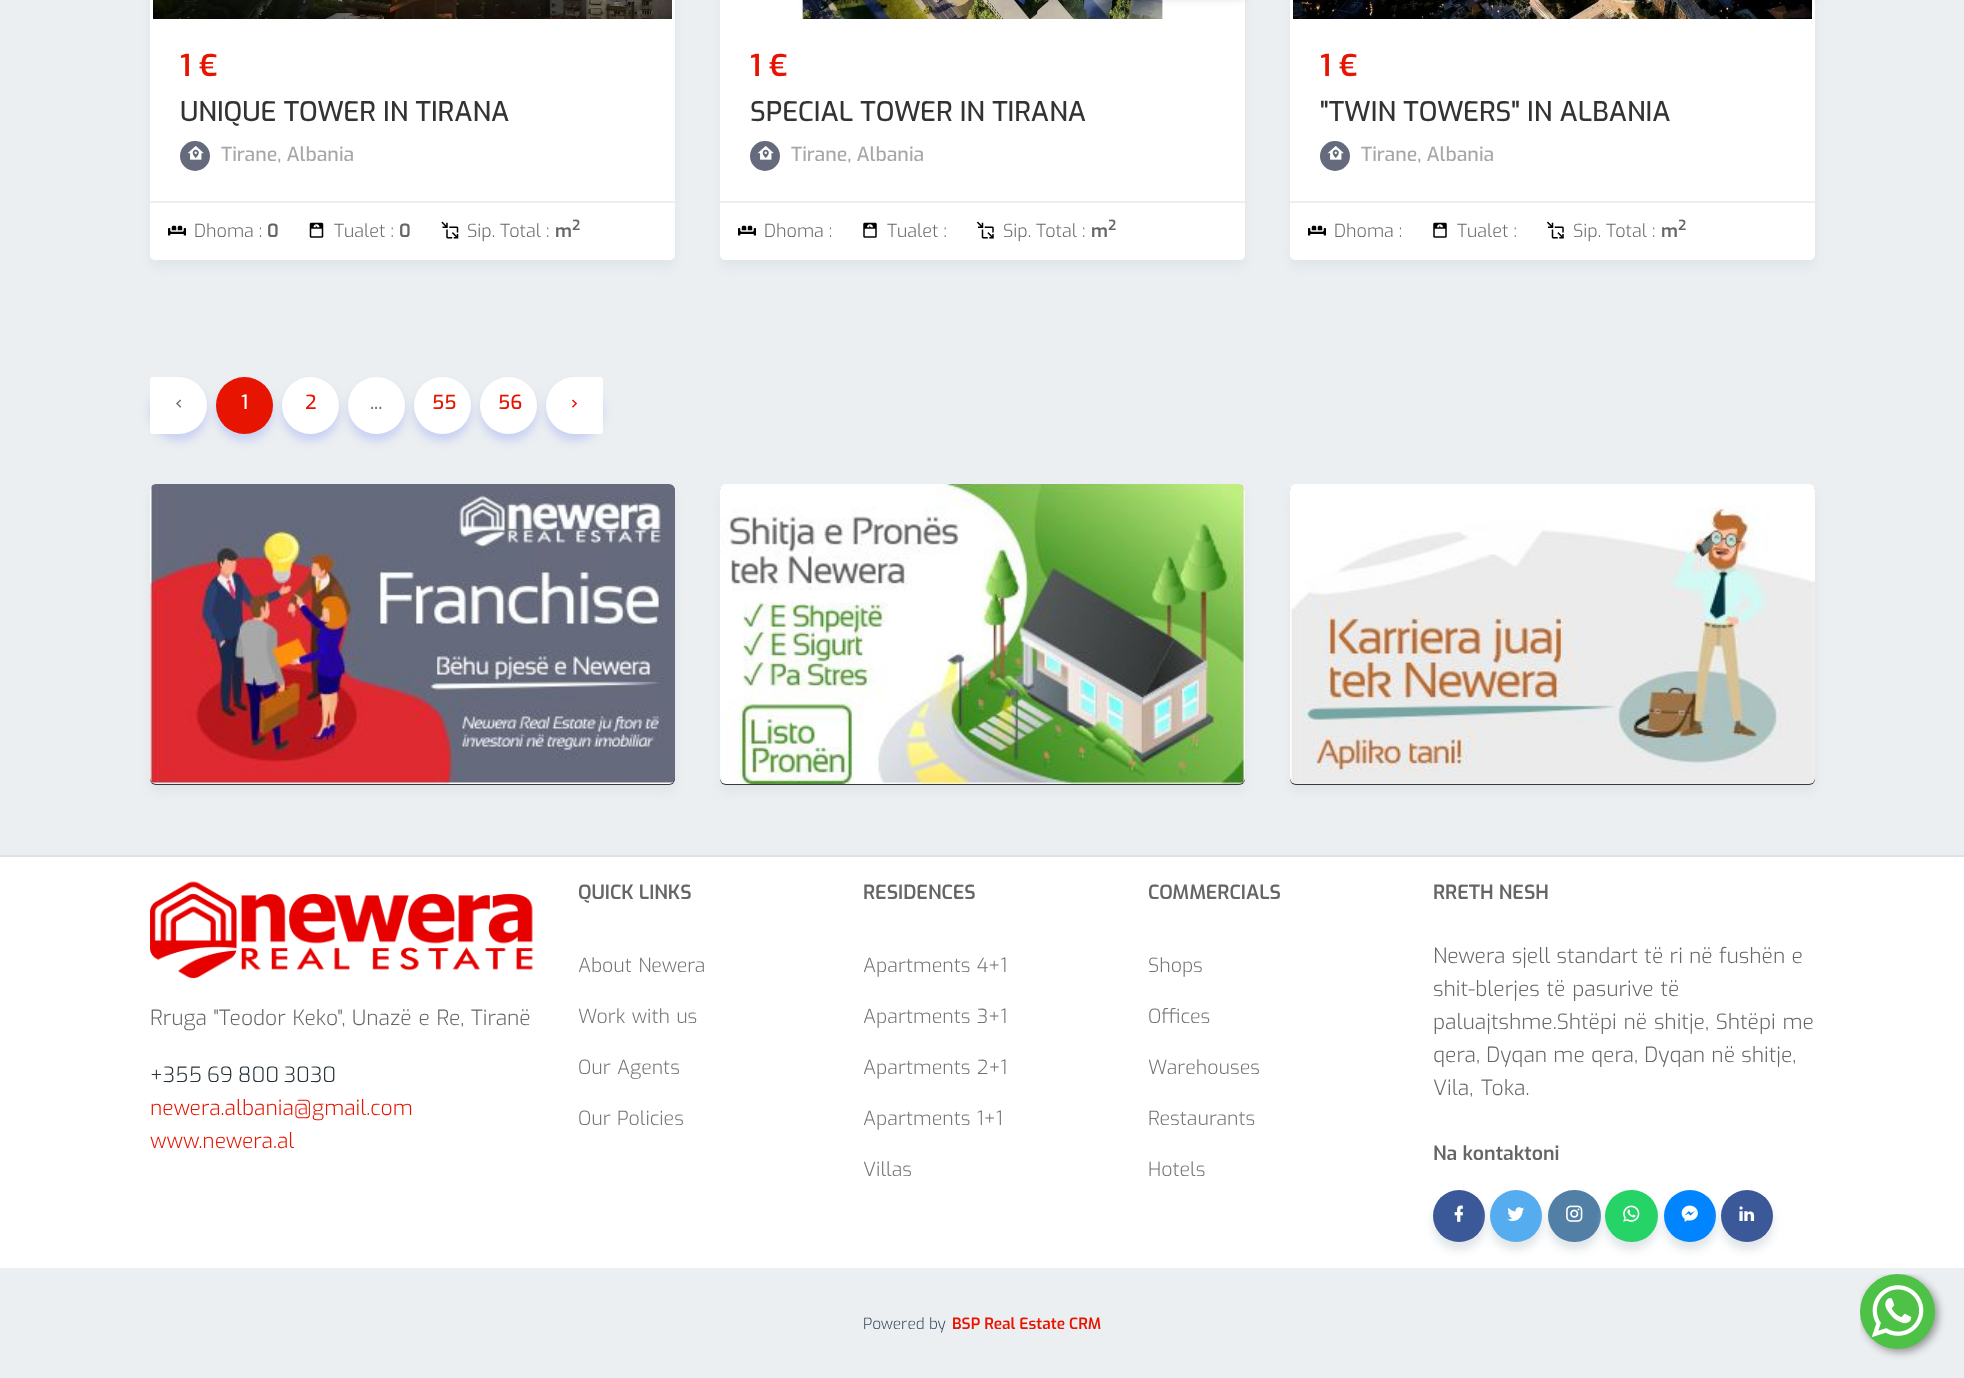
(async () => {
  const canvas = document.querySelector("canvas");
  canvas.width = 1964;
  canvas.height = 1378;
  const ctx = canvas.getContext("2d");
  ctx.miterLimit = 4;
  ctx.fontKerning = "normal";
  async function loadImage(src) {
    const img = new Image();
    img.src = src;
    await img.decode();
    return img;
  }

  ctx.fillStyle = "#eceff1";
  ctx.fillRect(0, 0, 1964, 1378);
  ctx.fillStyle = "#e0e5e8";
  ctx.filter = "blur(5px)";
  ctx.beginPath();
  ctx.roundRect(150, -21, 525, 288, 6);
  ctx.fill();
  ctx.filter = "none";
  ctx.fillStyle = "#ffffff";
  ctx.beginPath();
  ctx.roundRect(150, -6, 525, 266, 6);
  ctx.fill();
  ctx.drawImage(await loadImage("img/1.png"), 153, 0, 519, 19);
  ctx.fillStyle = "#656b7d";
  ctx.beginPath();
  ctx.arc(195, 156, 15, 0, Math.PI * 2);
  ctx.fill();
  ctx.drawImage(await loadImage("img/2.png"), 187, 146, 17, 14);
  ctx.fillStyle = "#ffffff";
  ctx.beginPath();
  ctx.roundRect(150, 201, 525, 59, [0, 0, 5, 5]);
  ctx.fill();
  ctx.fillStyle = "#eeeeee";
  ctx.fillRect(150, 201, 525, 2);
  ctx.drawImage(await loadImage("img/3.png"), 168, 225, 18, 11);
  ctx.drawImage(await loadImage("img/4.png"), 309, 222, 15, 16);
  ctx.drawImage(await loadImage("img/5.png"), 441, 221, 18, 18);
  ctx.fillStyle = "#e0e5e8";
  ctx.filter = "blur(5px)";
  ctx.beginPath();
  ctx.roundRect(720, -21, 525, 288, 6);
  ctx.fill();
  ctx.filter = "none";
  ctx.fillStyle = "#ffffff";
  ctx.beginPath();
  ctx.roundRect(720, -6, 525, 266, 6);
  ctx.fill();
  ctx.drawImage(await loadImage("img/6.png"), 796, 0, 368, 19);
  ctx.fillStyle = "rgba(0, 0, 0, 0.22)";
  ctx.filter = "blur(5px)";
  ctx.beginPath();
  ctx.roundRect(1022, -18, 223, 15, 3);
  ctx.fill();
  ctx.filter = "none";
  ctx.fillStyle = "#656b7d";
  ctx.beginPath();
  ctx.arc(765, 156, 15, 0, Math.PI * 2);
  ctx.fill();
  ctx.drawImage(await loadImage("img/2.png"), 757, 146, 17, 14);
  ctx.fillStyle = "#ffffff";
  ctx.beginPath();
  ctx.roundRect(720, 201, 525, 59, [0, 0, 5, 5]);
  ctx.fill();
  ctx.fillStyle = "#eeeeee";
  ctx.fillRect(720, 201, 525, 2);
  ctx.drawImage(await loadImage("img/3.png"), 738, 225, 18, 11);
  ctx.drawImage(await loadImage("img/7.png"), 863, 222, 14, 16);
  ctx.drawImage(await loadImage("img/8.png"), 976, 221, 18, 18);
  ctx.fillStyle = "#e0e5e8";
  ctx.filter = "blur(5px)";
  ctx.beginPath();
  ctx.roundRect(1290, -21, 525, 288, 6);
  ctx.fill();
  ctx.filter = "none";
  ctx.fillStyle = "#ffffff";
  ctx.beginPath();
  ctx.roundRect(1290, -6, 525, 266, 6);
  ctx.fill();
  ctx.drawImage(await loadImage("img/9.png"), 1293, 0, 519, 19);
  ctx.fillStyle = "rgba(0, 0, 0, 0.22)";
  ctx.filter = "blur(5px)";
  ctx.beginPath();
  ctx.roundRect(1592, -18, 223, 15, 3);
  ctx.fill();
  ctx.filter = "none";
  ctx.fillStyle = "#656b7d";
  ctx.beginPath();
  ctx.arc(1335, 156, 15, 0, Math.PI * 2);
  ctx.fill();
  ctx.drawImage(await loadImage("img/2.png"), 1327, 146, 17, 14);
  ctx.fillStyle = "#ffffff";
  ctx.beginPath();
  ctx.roundRect(1290, 201, 525, 59, [0, 0, 5, 5]);
  ctx.fill();
  ctx.fillStyle = "#eeeeee";
  ctx.fillRect(1290, 201, 525, 2);
  ctx.drawImage(await loadImage("img/3.png"), 1308, 225, 18, 11);
  ctx.drawImage(await loadImage("img/7.png"), 1433, 222, 14, 16);
  ctx.drawImage(await loadImage("img/8.png"), 1546, 221, 18, 18);
  ctx.fillStyle = "#c8d0f3";
  ctx.filter = "blur(5px)";
  ctx.beginPath();
  ctx.roundRect(150, 384, 57, 57, 28.5);
  ctx.fill();
  ctx.filter = "none";
  ctx.fillStyle = "#ffffff";
  ctx.beginPath();
  ctx.roundRect(150, 377, 57, 57, [3, 28.5, 28.5, 3]);
  ctx.fill();
  ctx.fillStyle = "#c8d0f3";
  ctx.filter = "blur(5px)";
  ctx.beginPath();
  ctx.roundRect(282, 384, 57, 57, 28.5);
  ctx.fill();
  ctx.filter = "none";
  ctx.fillStyle = "#ffffff";
  ctx.beginPath();
  ctx.arc(310.5, 405.5, 28.5, 0, Math.PI * 2);
  ctx.fill();
  ctx.fillStyle = "#c8d0f3";
  ctx.filter = "blur(5px)";
  ctx.beginPath();
  ctx.roundRect(216, 384, 57, 57, 28.5);
  ctx.fill();
  ctx.filter = "none";
  ctx.fillStyle = "#e61400";
  ctx.beginPath();
  ctx.arc(244.5, 405.5, 28.5, 0, Math.PI * 2);
  ctx.fill();
  ctx.fillStyle = "#c8d0f3";
  ctx.filter = "blur(5px)";
  ctx.beginPath();
  ctx.roundRect(348, 384, 57, 57, 28.5);
  ctx.fill();
  ctx.filter = "none";
  ctx.fillStyle = "#ffffff";
  ctx.beginPath();
  ctx.arc(376.5, 405.5, 28.5, 0, Math.PI * 2);
  ctx.fill();
  ctx.fillStyle = "#c8d0f3";
  ctx.filter = "blur(5px)";
  ctx.beginPath();
  ctx.roundRect(414, 384, 57, 57, 28.5);
  ctx.fill();
  ctx.filter = "none";
  ctx.fillStyle = "#ffffff";
  ctx.beginPath();
  ctx.arc(442.5, 405.5, 28.5, 0, Math.PI * 2);
  ctx.fill();
  ctx.fillStyle = "#c8d0f3";
  ctx.filter = "blur(5px)";
  ctx.beginPath();
  ctx.roundRect(480, 384, 57, 57, 28.5);
  ctx.fill();
  ctx.filter = "none";
  ctx.fillStyle = "#ffffff";
  ctx.beginPath();
  ctx.arc(508.5, 405.5, 28.5, 0, Math.PI * 2);
  ctx.fill();
  ctx.fillStyle = "#c8d0f3";
  ctx.filter = "blur(5px)";
  ctx.beginPath();
  ctx.roundRect(546, 384, 57, 57, 28.5);
  ctx.fill();
  ctx.filter = "none";
  ctx.fillStyle = "#ffffff";
  ctx.beginPath();
  ctx.roundRect(546, 377, 57, 57, [28.5, 3, 3, 28.5]);
  ctx.fill();
  ctx.fillStyle = "#e0e5e8";
  ctx.filter = "blur(5px)";
  ctx.beginPath();
  ctx.roundRect(150, 492, 525, 300, 6);
  ctx.fill();
  ctx.filter = "none";
  ctx.fillStyle = "#343a40";
  ctx.beginPath();
  ctx.roundRect(150, 485, 525, 300, 6);
  ctx.fill();
  ctx.drawImage(await loadImage("img/10.png"), 150, 484, 525, 300);
  ctx.fillStyle = "#e0e5e8";
  ctx.filter = "blur(5px)";
  ctx.beginPath();
  ctx.roundRect(720, 492, 525, 300, 6);
  ctx.fill();
  ctx.filter = "none";
  ctx.fillStyle = "#343a40";
  ctx.beginPath();
  ctx.roundRect(720, 485, 525, 300, 6);
  ctx.fill();
  ctx.drawImage(await loadImage("img/11.png"), 720, 484, 525, 300);
  ctx.fillStyle = "#e0e5e8";
  ctx.filter = "blur(5px)";
  ctx.beginPath();
  ctx.roundRect(1290, 492, 525, 300, 6);
  ctx.fill();
  ctx.filter = "none";
  ctx.fillStyle = "#343a40";
  ctx.beginPath();
  ctx.roundRect(1290, 485, 525, 300, 6);
  ctx.fill();
  ctx.drawImage(await loadImage("img/12.png"), 1290, 484, 525, 300);
  ctx.fillStyle = "#ffffff";
  ctx.fillRect(0, 857, 1964, 411);
  ctx.fillStyle = "#dee2e6";
  ctx.fillRect(0, 855, 1964, 2);
  ctx.drawImage(await loadImage("img/13.png"), 150, 881, 383, 98);
  ctx.fillStyle = "#e0e5e8";
  ctx.filter = "blur(5px)";
  ctx.beginPath();
  ctx.roundRect(1433, 1197, 52, 53, 26);
  ctx.fill();
  ctx.filter = "none";
  ctx.fillStyle = "#3b5999";
  ctx.beginPath();
  ctx.arc(1459, 1216, 26, 0, Math.PI * 2);
  ctx.fill();
  ctx.drawImage(await loadImage("img/14.png"), 1454, 1205, 9, 17);
  ctx.fillStyle = "#e0e5e8";
  ctx.filter = "blur(5px)";
  ctx.beginPath();
  ctx.roundRect(1490, 1197, 52, 53, 26);
  ctx.fill();
  ctx.filter = "none";
  ctx.fillStyle = "#55acee";
  ctx.beginPath();
  ctx.arc(1516, 1216, 26, 0, Math.PI * 2);
  ctx.fill();
  ctx.drawImage(await loadImage("img/15.png"), 1507, 1207, 17, 14);
  ctx.fillStyle = "#e0e5e8";
  ctx.filter = "blur(5px)";
  ctx.beginPath();
  ctx.roundRect(1548, 1197, 53, 53, 26.5);
  ctx.fill();
  ctx.filter = "none";
  ctx.fillStyle = "#517fa6";
  ctx.beginPath();
  ctx.roundRect(1548, 1190, 53, 52, 26);
  ctx.fill();
  ctx.drawImage(await loadImage("img/16.png"), 1566, 1205, 17, 17);
  ctx.fillStyle = "#e0e5e8";
  ctx.filter = "blur(5px)";
  ctx.beginPath();
  ctx.roundRect(1605, 1197, 53, 53, 26.5);
  ctx.fill();
  ctx.filter = "none";
  ctx.fillStyle = "#25d366";
  ctx.beginPath();
  ctx.roundRect(1605, 1190, 53, 52, 26);
  ctx.fill();
  ctx.drawImage(await loadImage("img/17.png"), 1623, 1205, 17, 17);
  ctx.fillStyle = "#e0e5e8";
  ctx.filter = "blur(5px)";
  ctx.beginPath();
  ctx.roundRect(1664, 1197, 52, 53, 26);
  ctx.fill();
  ctx.filter = "none";
  ctx.fillStyle = "#0084ff";
  ctx.beginPath();
  ctx.arc(1690, 1216, 26, 0, Math.PI * 2);
  ctx.fill();
  ctx.drawImage(await loadImage("img/18.png"), 1681, 1205, 17, 17);
  ctx.fillStyle = "#e0e5e8";
  ctx.filter = "blur(5px)";
  ctx.beginPath();
  ctx.roundRect(1721, 1197, 52, 53, 26);
  ctx.fill();
  ctx.filter = "none";
  ctx.fillStyle = "#3b5999";
  ctx.beginPath();
  ctx.arc(1747, 1216, 26, 0, Math.PI * 2);
  ctx.fill();
  ctx.drawImage(await loadImage("img/19.png"), 1739, 1206, 16, 15);
  ctx.save();
  ctx.beginPath();
  ctx.rect(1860, 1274, 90, 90);
  ctx.clip();
  ctx.fillStyle = "rgba(0, 0, 0, 0.4)";
  ctx.filter = "blur(4.5px)";
  ctx.beginPath();
  ctx.roundRect(1863, 1277, 75, 75, 37.5);
  ctx.fill();
  ctx.filter = "none";
  ctx.restore();
  ctx.fillStyle = "#4dc247";
  ctx.beginPath();
  ctx.arc(1897.5, 1311.5, 37.5, 0, Math.PI * 2);
  ctx.fill();
  ctx.drawImage(await loadImage("img/20.png"), 1871, 1285, 53, 53);
  ctx.font = "600 30px Exo";
  ctx.fillStyle = "#e61400";
  ctx.fillText("1 €", 180, 76);
  ctx.font = "500 27px Exo";
  ctx.fillStyle = "#333333";
  ctx.fillText("UNIQUE TOWER IN TIRANA", 180, 121);
  ctx.font = "500 19.5px Exo";
  ctx.fillStyle = "#a7a7a7";
  ctx.fillText("Tirane, Albania", 221, 161);
  ctx.font = "300 18px Exo";
  ctx.fillStyle = "#666666";
  ctx.fillText("Dhoma :", 194, 237);
  ctx.font = "600 18px Exo";
  ctx.fillText("0", 267, 237);
  ctx.font = "300 18px Exo";
  ctx.fillText("Tualet :", 334, 237);
  ctx.font = "600 18px Exo";
  ctx.fillText("0", 399, 237);
  ctx.font = "300 18px Exo";
  ctx.fillText("Sip. Total :", 467, 237);
  ctx.font = "600 18px Exo";
  ctx.fillText("m", 555, 237);
  ctx.font = "600 14px Exo";
  ctx.fillText("2", 572, 230);
  ctx.font = "600 30px Exo";
  ctx.fillStyle = "#e61400";
  ctx.fillText("1 €", 750, 76);
  ctx.font = "500 27px Exo";
  ctx.fillStyle = "#333333";
  ctx.fillText("SPECIAL TOWER IN TIRANA", 750, 121);
  ctx.font = "500 19.5px Exo";
  ctx.fillStyle = "#a7a7a7";
  ctx.fillText("Tirane, Albania", 791, 161);
  ctx.font = "300 18px Exo";
  ctx.fillStyle = "#666666";
  for (const [text, x, y] of [
    ["Dhoma :", 764, 237],
    ["Tualet :", 887, 237],
    ["Sip. Total :", 1003, 237],
  ]) {
    ctx.fillText(text, x, y);
  }
  ctx.font = "600 18px Exo";
  ctx.fillText("m", 1091, 237);
  ctx.font = "600 14px Exo";
  ctx.fillText("2", 1108, 230);
  ctx.font = "600 30px Exo";
  ctx.fillStyle = "#e61400";
  ctx.fillText("1 €", 1320, 76);
  ctx.font = "500 27px Exo";
  ctx.fillStyle = "#333333";
  ctx.fillText("\"TWIN TOWERS\" IN ALBANIA", 1320, 121);
  ctx.font = "500 19.5px Exo";
  ctx.fillStyle = "#a7a7a7";
  ctx.fillText("Tirane, Albania", 1361, 161);
  ctx.font = "300 18px Exo";
  ctx.fillStyle = "#666666";
  for (const [text, x, y] of [
    ["Dhoma :", 1334, 237],
    ["Tualet :", 1457, 237],
    ["Sip. Total :", 1573, 237],
  ]) {
    ctx.fillText(text, x, y);
  }
  ctx.font = "600 18px Exo";
  ctx.fillText("m", 1661, 237);
  ctx.font = "600 14px Exo";
  ctx.fillText("2", 1678, 230);
  ctx.font = "500 19.5px Exo";
  ctx.fillStyle = "#6c757d";
  ctx.fillText("‹", 175, 409);
  ctx.fillStyle = "#ffffff";
  ctx.fillText("1", 241, 409);
  ctx.fillStyle = "#e61400";
  ctx.fillText("2", 305, 409);
  ctx.fillStyle = "#6c757d";
  ctx.fillText("...", 370, 409);
  ctx.fillStyle = "#e61400";
  for (const [text, x, y] of [
    ["55", 432, 409],
    ["56", 498, 409],
    ["›", 571, 409],
  ]) {
    ctx.fillText(text, x, y);
  }
  ctx.wordSpacing = "1px";
  ctx.font = "300 21px Exo";
  ctx.fillStyle = "#666666";
  ctx.fillText("Rruga \"Teodor Keko\", Unazë e Re, Tiranë", 150, 1025);
  ctx.wordSpacing = "-1px";
  ctx.fillStyle = "#263238";
  ctx.fillText("+355 69 800 3030", 150, 1082);
  ctx.wordSpacing = "0px";
  ctx.fillStyle = "#e61400";
  ctx.fillText("newera.albania@gmail.com", 150, 1115);
  ctx.fillText("www.newera.al", 150, 1148);
  ctx.font = "600 19.5px Exo";
  ctx.fillStyle = "#666666";
  ctx.fillText("QUICK LINKS", 578, 899);
  ctx.wordSpacing = "1px";
  ctx.font = "300 19.5px Exo";
  ctx.fillStyle = "#737373";
  for (const [text, x, y] of [
    ["About Newera", 578, 972],
    ["Work with us", 578, 1023],
    ["Our Agents", 578, 1074],
    ["Our Policies", 578, 1125],
  ]) {
    ctx.fillText(text, x, y);
  }
  ctx.wordSpacing = "0px";
  ctx.font = "600 19.5px Exo";
  ctx.fillStyle = "#666666";
  ctx.fillText("RESIDENCES", 863, 899);
  ctx.wordSpacing = "1px";
  ctx.font = "300 19.5px Exo";
  ctx.fillStyle = "#737373";
  for (const [text, x, y] of [
    ["Apartments 4+1", 863, 972],
    ["Apartments 3+1", 863, 1023],
    ["Apartments 2+1", 863, 1074],
    ["Apartments 1+1", 863, 1125],
  ]) {
    ctx.fillText(text, x, y);
  }
  ctx.wordSpacing = "0px";
  ctx.fillText("Villas", 863, 1176);
  ctx.font = "600 19.5px Exo";
  ctx.fillStyle = "#666666";
  ctx.fillText("COMMERCIALS", 1148, 899);
  ctx.font = "300 19.5px Exo";
  ctx.fillStyle = "#737373";
  for (const [text, x, y] of [
    ["Shops", 1148, 972],
    ["Offices", 1148, 1023],
    ["Warehouses", 1148, 1074],
    ["Restaurants", 1148, 1125],
    ["Hotels", 1148, 1176],
  ]) {
    ctx.fillText(text, x, y);
  }
  ctx.font = "600 19.5px Exo";
  ctx.fillStyle = "#666666";
  ctx.fillText("RRETH NESH", 1433, 899);
  ctx.wordSpacing = "0.5px";
  ctx.font = "300 21px Exo";
  ctx.fillText("Newera sjell standart të ri në fushën e", 1433, 963);
  ctx.wordSpacing = "1px";
  ctx.fillText("shit-blerjes të pasurive të", 1433, 996);
  ctx.fillText("paluajtshme.Shtëpi në shitje, Shtëpi me", 1433, 1029);
  ctx.wordSpacing = "0.5px";
  ctx.fillText("qera, Dyqan me qera, Dyqan në shitje,", 1433, 1062);
  ctx.wordSpacing = "2px";
  ctx.fillText("Vila, Toka.", 1433, 1095);
  ctx.wordSpacing = "0px";
  ctx.font = "600 19.5px Exo";
  ctx.fillText("Na kontaktoni", 1433, 1160);
  ctx.font = "300 15.5px Exo";
  ctx.fillStyle = "#34495e";
  ctx.fillText("Powered by", 863, 1329);
  ctx.font = "600 15.5px Exo";
  ctx.fillStyle = "#e61400";
  ctx.fillText("BSP Real Estate CRM", 952, 1329);
})();
